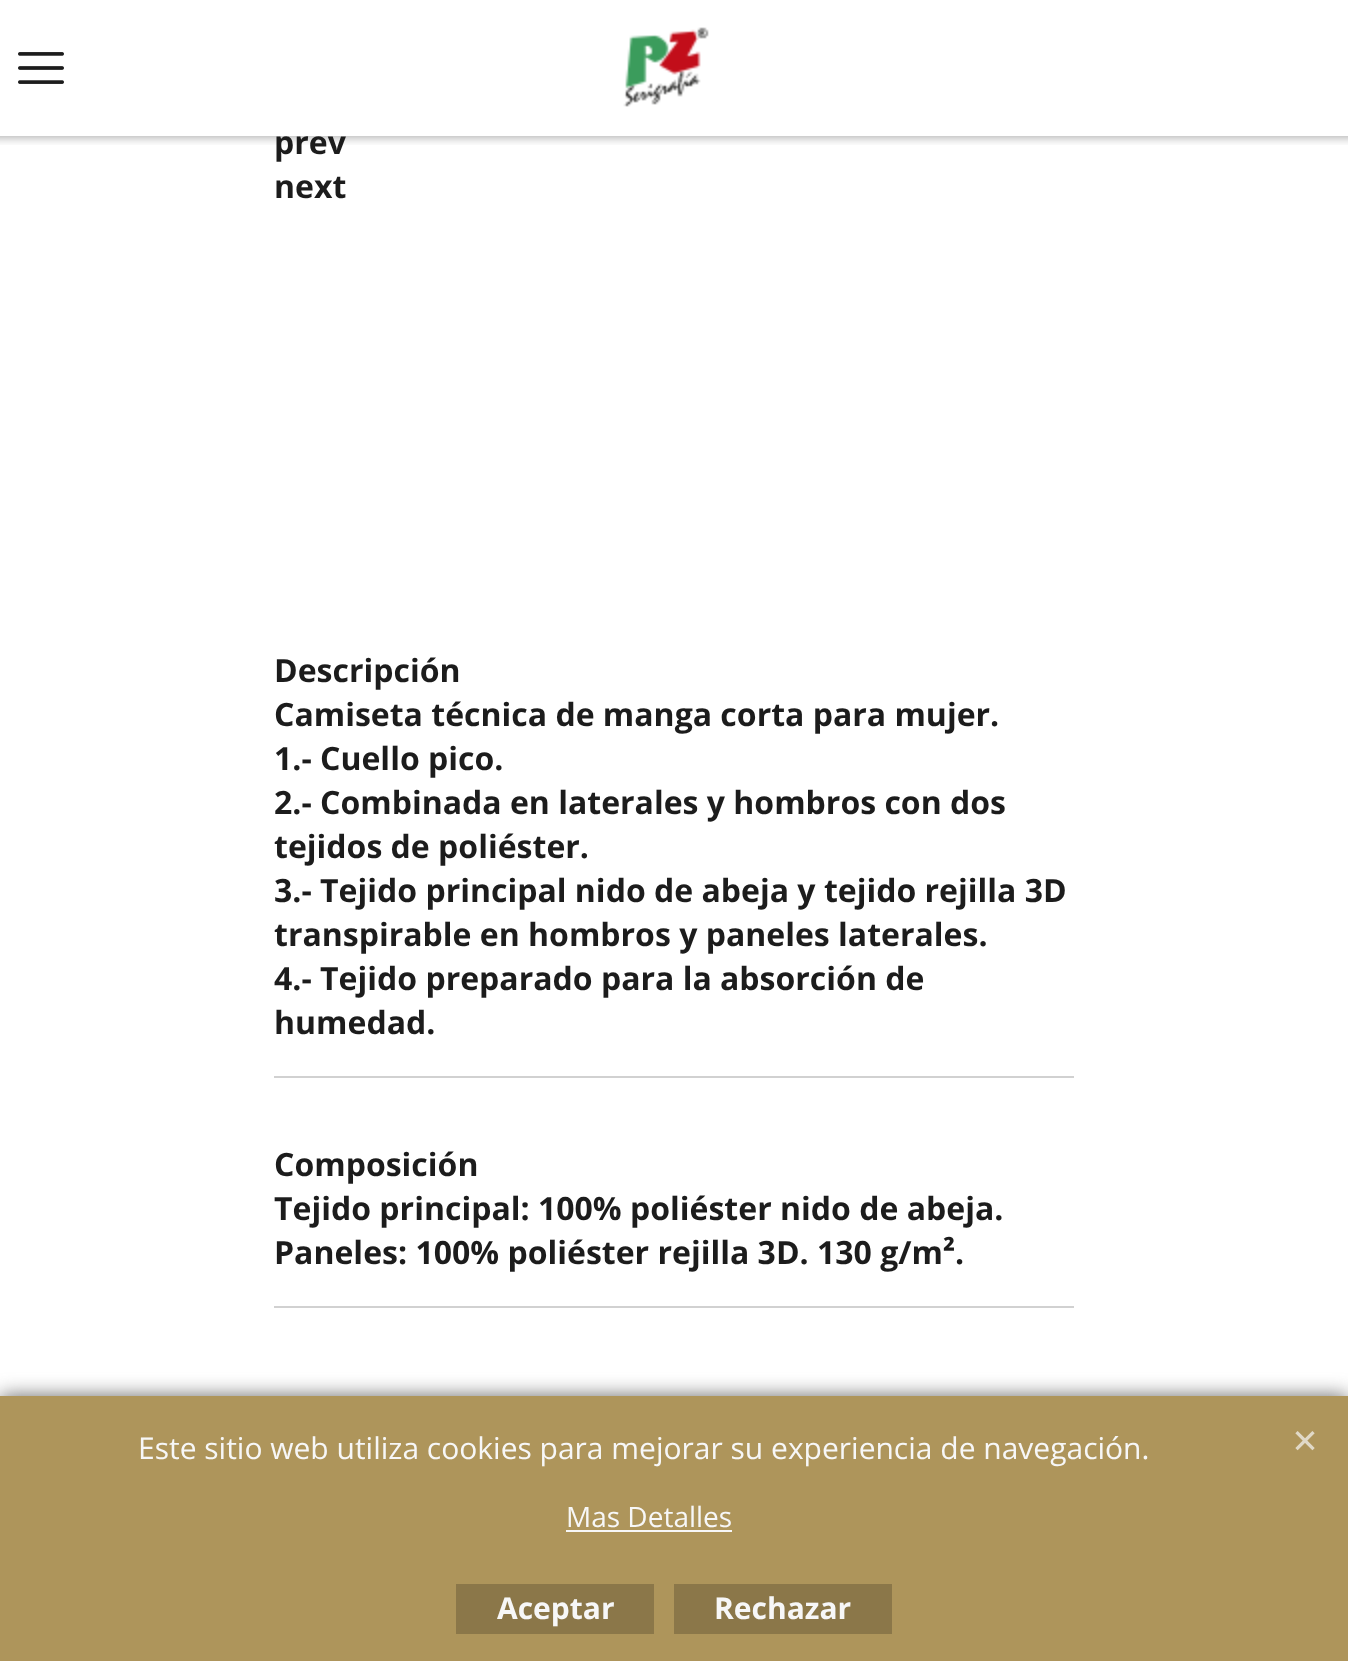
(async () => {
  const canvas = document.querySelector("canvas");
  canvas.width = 1348;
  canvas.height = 1661;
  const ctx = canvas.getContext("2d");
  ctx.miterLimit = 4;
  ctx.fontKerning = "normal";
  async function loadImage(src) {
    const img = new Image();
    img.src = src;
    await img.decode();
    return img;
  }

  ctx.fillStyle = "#ffffff";
  ctx.fillRect(0, 0, 1348, 1661);
  ctx.save();
  ctx.beginPath();
  ctx.rect(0, 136, 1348, 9);
  ctx.clip();
  ctx.fillStyle = "rgba(0, 0, 0, 0.3)";
  ctx.filter = "blur(5px)";
  ctx.beginPath();
  ctx.rect(-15, -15, 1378, 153);
  ctx.fill();
  ctx.filter = "none";
  ctx.restore();
  ctx.drawImage(await loadImage("img/1.png"), 18, 52, 46, 32);
  ctx.drawImage(await loadImage("img/2.png"), 623, 27, 86, 80);
  ctx.fillStyle = "#d1d1d1";
  ctx.fillRect(274, 1076, 800, 2);
  ctx.fillRect(274, 1306, 800, 2);
  ctx.fillStyle = "#666666";
  ctx.filter = "blur(10px)";
  ctx.beginPath();
  ctx.rect(0, 1396, 1348, 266);
  ctx.fill();
  ctx.filter = "none";
  ctx.fillStyle = "#ae955b";
  ctx.fillRect(0, 1396, 1348, 265);
  ctx.fillStyle = "#f7f7f7";
  ctx.fillRect(566, 1530, 166, 2);
  ctx.drawImage(await loadImage("img/3.png"), 1295, 1431, 20, 20);
  ctx.fillStyle = "#8b7749";
  ctx.fillRect(456, 1584, 198, 50);
  ctx.fillRect(674, 1584, 218, 50);
  ctx.font = "bold 32px Open Sans";
  ctx.fillStyle = "#1c1c1c";
  for (const [text, x, y] of [
    ["prev", 274, 154],
    ["next", 274, 198],
    ["Descripción", 274, 682],
    ["Camiseta técnica de manga corta para mujer.", 274, 726],
    ["1.- Cuello pico.", 274, 770],
    ["2.- Combinada en laterales y hombros con dos", 274, 814],
    ["tejidos de poliéster.", 274, 858],
    ["3.- Tejido principal nido de abeja y tejido rejilla 3D", 274, 902],
    ["transpirable en hombros y paneles laterales.", 274, 946],
    ["4.- Tejido preparado para la absorción de", 274, 990],
    ["humedad.", 274, 1034],
    ["Composición", 274, 1176],
    ["Tejido principal: 100% poliéster nido de abeja.", 274, 1220],
    ["Paneles: 100% poliéster rejilla 3D. 130 g/m².", 274, 1264],
  ]) {
    ctx.fillText(text, x, y);
  }
  ctx.font = "30px Open Sans";
  ctx.fillStyle = "#f7f7f7";
  ctx.fillText("Este sitio web utiliza cookies para mejorar su experiencia de navegación.", 138, 1459);
  ctx.font = "28px Open Sans";
  ctx.fillText("Mas Detalles", 566, 1527);
  ctx.font = "bold 30px Open Sans";
  ctx.fillText("Aceptar", 497, 1619);
  ctx.fillText("Rechazar", 714, 1619);
})();
